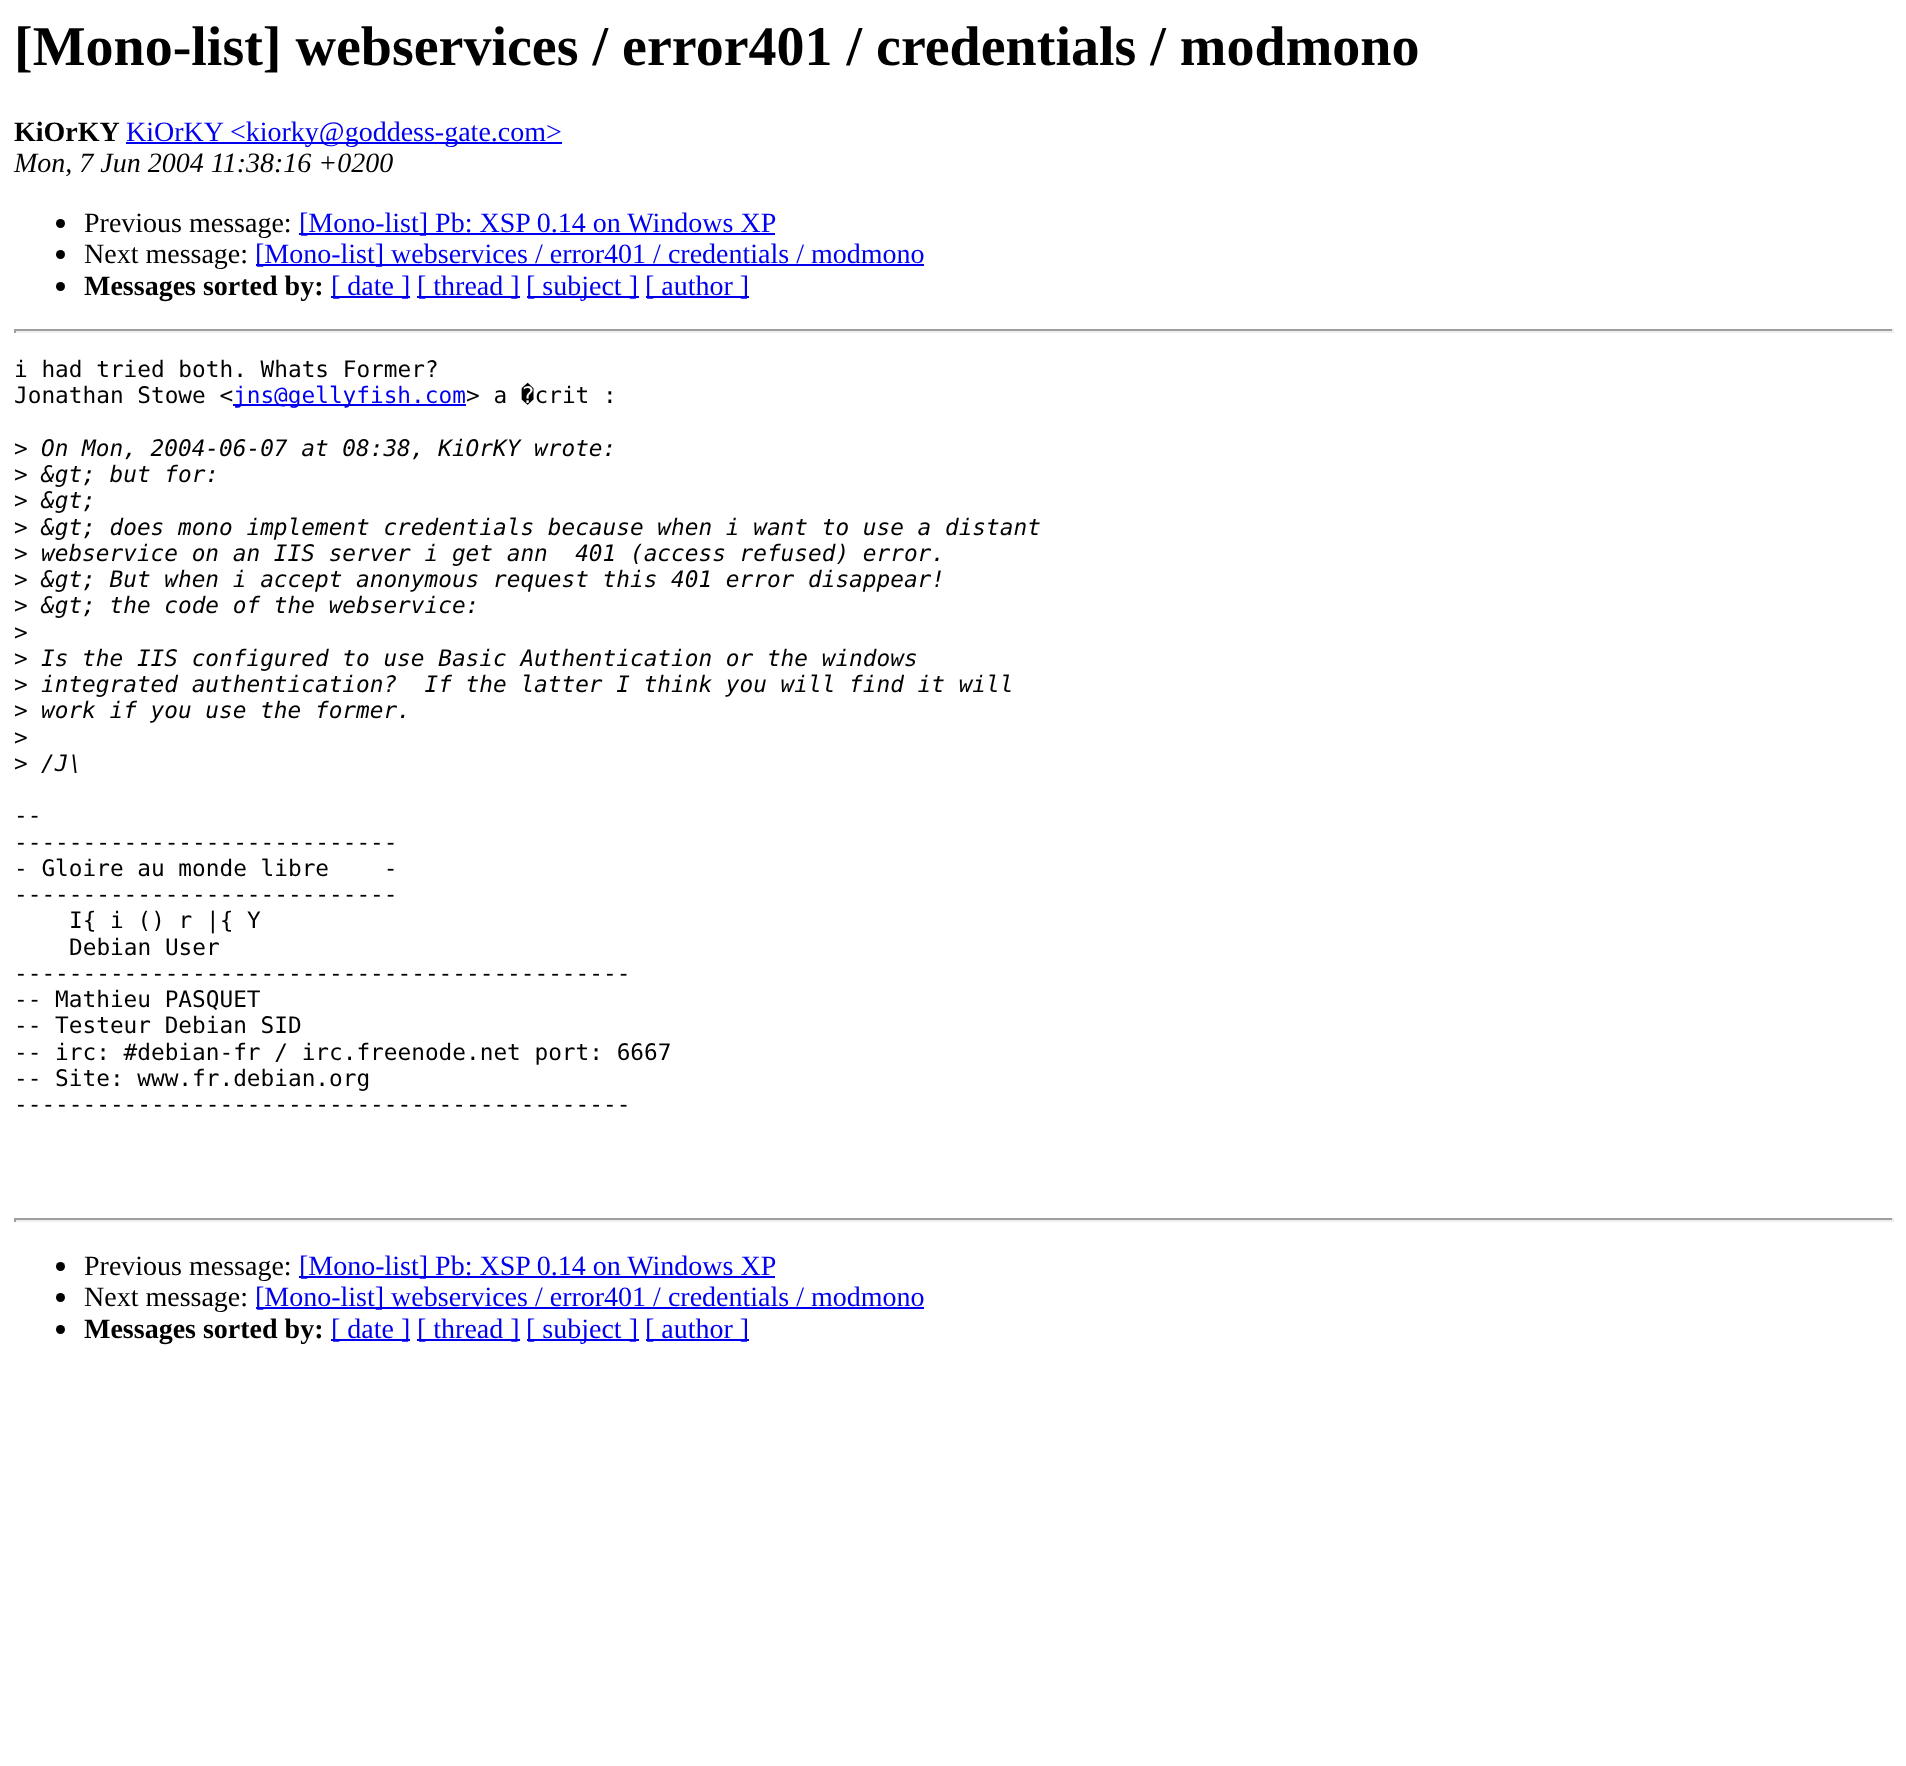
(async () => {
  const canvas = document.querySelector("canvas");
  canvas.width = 1906;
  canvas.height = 1766;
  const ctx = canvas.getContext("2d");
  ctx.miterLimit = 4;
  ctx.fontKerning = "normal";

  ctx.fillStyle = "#ffffff";
  ctx.fillRect(0, 0, 1906, 1766);
  ctx.fillStyle = "#0000ee";
  ctx.fillRect(126, 142, 436, 2);
  ctx.fillStyle = "#000000";
  ctx.beginPath();
  ctx.arc(60.5, 223.5, 4.5, 0, Math.PI * 2);
  ctx.fill();
  ctx.fillStyle = "#0000ee";
  ctx.fillRect(299, 233, 476, 2);
  ctx.fillStyle = "#000000";
  ctx.beginPath();
  ctx.arc(60.5, 254.5, 4.5, 0, Math.PI * 2);
  ctx.fill();
  ctx.fillStyle = "#0000ee";
  ctx.fillRect(256, 264, 668, 2);
  ctx.fillStyle = "#000000";
  ctx.beginPath();
  ctx.arc(60.5, 286.5, 4.5, 0, Math.PI * 2);
  ctx.fill();
  for (const [x, y, w, h, color] of [
    [331, 296, 79, 2, "#0000ee"],
    [417, 296, 103, 2, "#0000ee"],
    [527, 296, 112, 2, "#0000ee"],
    [646, 296, 103, 2, "#0000ee"],
    [14, 329, 1880, 2, "#9f9f9f"],
    [1892, 329, 2, 4, "#eeeeee"],
    [14, 331, 1880, 2, "#eeeeee"],
    [14, 329, 2, 4, "#9f9f9f"],
    [233, 404, 233, 2, "#0000ee"],
    [14, 1218, 1880, 2, "#9f9f9f"],
    [1892, 1218, 2, 4, "#eeeeee"],
    [14, 1220, 1880, 2, "#eeeeee"],
    [14, 1218, 2, 4, "#9f9f9f"],
  ]) {
    ctx.fillStyle = color;
    ctx.fillRect(x, y, w, h);
  }
  ctx.fillStyle = "#000000";
  ctx.beginPath();
  ctx.arc(60.5, 1266.5, 4.5, 0, Math.PI * 2);
  ctx.fill();
  ctx.fillStyle = "#0000ee";
  ctx.fillRect(299, 1276, 476, 2);
  ctx.fillStyle = "#000000";
  ctx.beginPath();
  ctx.arc(60.5, 1297.5, 4.5, 0, Math.PI * 2);
  ctx.fill();
  ctx.fillStyle = "#0000ee";
  ctx.fillRect(256, 1307, 668, 2);
  ctx.fillStyle = "#000000";
  ctx.beginPath();
  ctx.arc(60.5, 1329.5, 4.5, 0, Math.PI * 2);
  ctx.fill();
  for (const [x, y, w, h, color] of [
    [331, 1339, 79, 2, "#0000ee"],
    [417, 1339, 103, 2, "#0000ee"],
    [527, 1339, 112, 2, "#0000ee"],
    [646, 1339, 103, 2, "#0000ee"],
  ]) {
    ctx.fillStyle = color;
    ctx.fillRect(x, y, w, h);
  }
  ctx.font = "bold 56px Liberation Serif";
  ctx.fillStyle = "#000000";
  ctx.fillText("[Mono-list] webservices / error401 / credentials / modmono", 14, 65);
  ctx.font = "bold 28px Liberation Serif";
  ctx.fillText("KiOrKY", 14, 141);
  ctx.font = "28px Liberation Serif";
  ctx.fillStyle = "#0000ee";
  ctx.fillText("KiOrKY <kiorky@goddess-gate.com>", 126, 141);
  ctx.font = "italic 28px Liberation Serif";
  ctx.fillStyle = "#000000";
  ctx.fillText("Mon, 7 Jun 2004 11:38:16 +0200", 14, 172);
  ctx.font = "28px Liberation Serif";
  ctx.fillText("Previous message:", 84, 232);
  ctx.fillStyle = "#0000ee";
  ctx.fillText("[Mono-list] Pb: XSP 0.14 on Windows XP", 299, 232);
  ctx.fillStyle = "#000000";
  ctx.fillText("Next message:", 84, 263);
  ctx.fillStyle = "#0000ee";
  ctx.fillText("[Mono-list] webservices / error401 / credentials / modmono", 255, 263);
  ctx.font = "bold 28px Liberation Serif";
  ctx.fillStyle = "#000000";
  ctx.fillText("Messages sorted by:", 84, 295);
  ctx.font = "28px Liberation Serif";
  ctx.fillStyle = "#0000ee";
  for (const [text, x, y] of [
    ["[ date ]", 331, 295],
    ["[ thread ]", 417, 295],
    ["[ subject ]", 526, 295],
    ["[ author ]", 645, 295],
  ]) {
    ctx.fillText(text, x, y);
  }
  ctx.font = "22.75px DejaVu Sans Mono";
  ctx.fillStyle = "#000000";
  ctx.fillText("i had tried both. Whats Former?", 14, 377);
  ctx.fillText("Jonathan Stowe <", 14, 403);
  ctx.fillStyle = "#0000ee";
  ctx.fillText("jns@gellyfish.com", 233, 403);
  ctx.fillStyle = "#000000";
  ctx.fillText("> a �crit :", 466, 403);
  ctx.fillText(">", 14, 456);
  ctx.font = "italic 22.75px DejaVu Sans Mono";
  ctx.fillText("On Mon, 2004-06-07 at 08:38, KiOrKY wrote:", 41, 456);
  ctx.font = "22.75px DejaVu Sans Mono";
  ctx.fillText(">", 14, 482);
  ctx.font = "italic 22.75px DejaVu Sans Mono";
  ctx.fillText("&gt; but for:", 41, 482);
  ctx.font = "22.75px DejaVu Sans Mono";
  ctx.fillText(">", 14, 508);
  ctx.font = "italic 22.75px DejaVu Sans Mono";
  ctx.fillText("&gt;", 41, 508);
  ctx.font = "22.75px DejaVu Sans Mono";
  ctx.fillText(">", 14, 535);
  ctx.font = "italic 22.75px DejaVu Sans Mono";
  ctx.fillText("&gt; does mono implement credentials because when i want to use a distant", 41, 535);
  ctx.font = "22.75px DejaVu Sans Mono";
  ctx.fillText(">", 14, 561);
  ctx.font = "italic 22.75px DejaVu Sans Mono";
  ctx.fillText("webservice on an IIS server i get ann  401 (access refused) error.", 41, 561);
  ctx.font = "22.75px DejaVu Sans Mono";
  ctx.fillText(">", 14, 587);
  ctx.font = "italic 22.75px DejaVu Sans Mono";
  ctx.fillText("&gt; But when i accept anonymous request this 401 error disappear!", 41, 587);
  ctx.font = "22.75px DejaVu Sans Mono";
  ctx.fillText(">", 14, 613);
  ctx.font = "italic 22.75px DejaVu Sans Mono";
  ctx.fillText("&gt; the code of the webservice:", 41, 613);
  ctx.font = "22.75px DejaVu Sans Mono";
  ctx.fillText(">", 14, 640);
  ctx.fillText(">", 14, 666);
  ctx.font = "italic 22.75px DejaVu Sans Mono";
  ctx.fillText("Is the IIS configured to use Basic Authentication or the windows", 41, 666);
  ctx.font = "22.75px DejaVu Sans Mono";
  ctx.fillText(">", 14, 692);
  ctx.font = "italic 22.75px DejaVu Sans Mono";
  ctx.fillText("integrated authentication?  If the latter I think you will find it will", 41, 692);
  ctx.font = "22.75px DejaVu Sans Mono";
  ctx.fillText(">", 14, 718);
  ctx.font = "italic 22.75px DejaVu Sans Mono";
  ctx.fillText("work if you use the former.", 41, 718);
  ctx.font = "22.75px DejaVu Sans Mono";
  ctx.fillText(">", 14, 745);
  ctx.fillText(">", 14, 771);
  ctx.font = "italic 22.75px DejaVu Sans Mono";
  ctx.fillText("/J\\", 41, 771);
  ctx.font = "22.75px DejaVu Sans Mono";
  for (const [text, x, y] of [
    ["--", 14, 823],
    ["----------------------------", 14, 850],
    ["- Gloire au monde libre    -", 14, 876],
    ["----------------------------", 14, 902],
    ["I{ i () r |{ Y", 69, 928],
    ["Debian User", 69, 955],
    ["---------------------------------------------", 14, 981],
    ["-- Mathieu PASQUET", 14, 1007],
    ["-- Testeur Debian SID", 14, 1033],
    ["-- irc: #debian-fr / irc.freenode.net port: 6667", 14, 1060],
    ["-- Site: www.fr.debian.org", 14, 1086],
    ["---------------------------------------------", 14, 1112],
  ]) {
    ctx.fillText(text, x, y);
  }
  ctx.font = "28px Liberation Serif";
  ctx.fillText("Previous message:", 84, 1275);
  ctx.fillStyle = "#0000ee";
  ctx.fillText("[Mono-list] Pb: XSP 0.14 on Windows XP", 299, 1275);
  ctx.fillStyle = "#000000";
  ctx.fillText("Next message:", 84, 1306);
  ctx.fillStyle = "#0000ee";
  ctx.fillText("[Mono-list] webservices / error401 / credentials / modmono", 255, 1306);
  ctx.font = "bold 28px Liberation Serif";
  ctx.fillStyle = "#000000";
  ctx.fillText("Messages sorted by:", 84, 1338);
  ctx.font = "28px Liberation Serif";
  ctx.fillStyle = "#0000ee";
  for (const [text, x, y] of [
    ["[ date ]", 331, 1338],
    ["[ thread ]", 417, 1338],
    ["[ subject ]", 526, 1338],
    ["[ author ]", 645, 1338],
  ]) {
    ctx.fillText(text, x, y);
  }
})();
